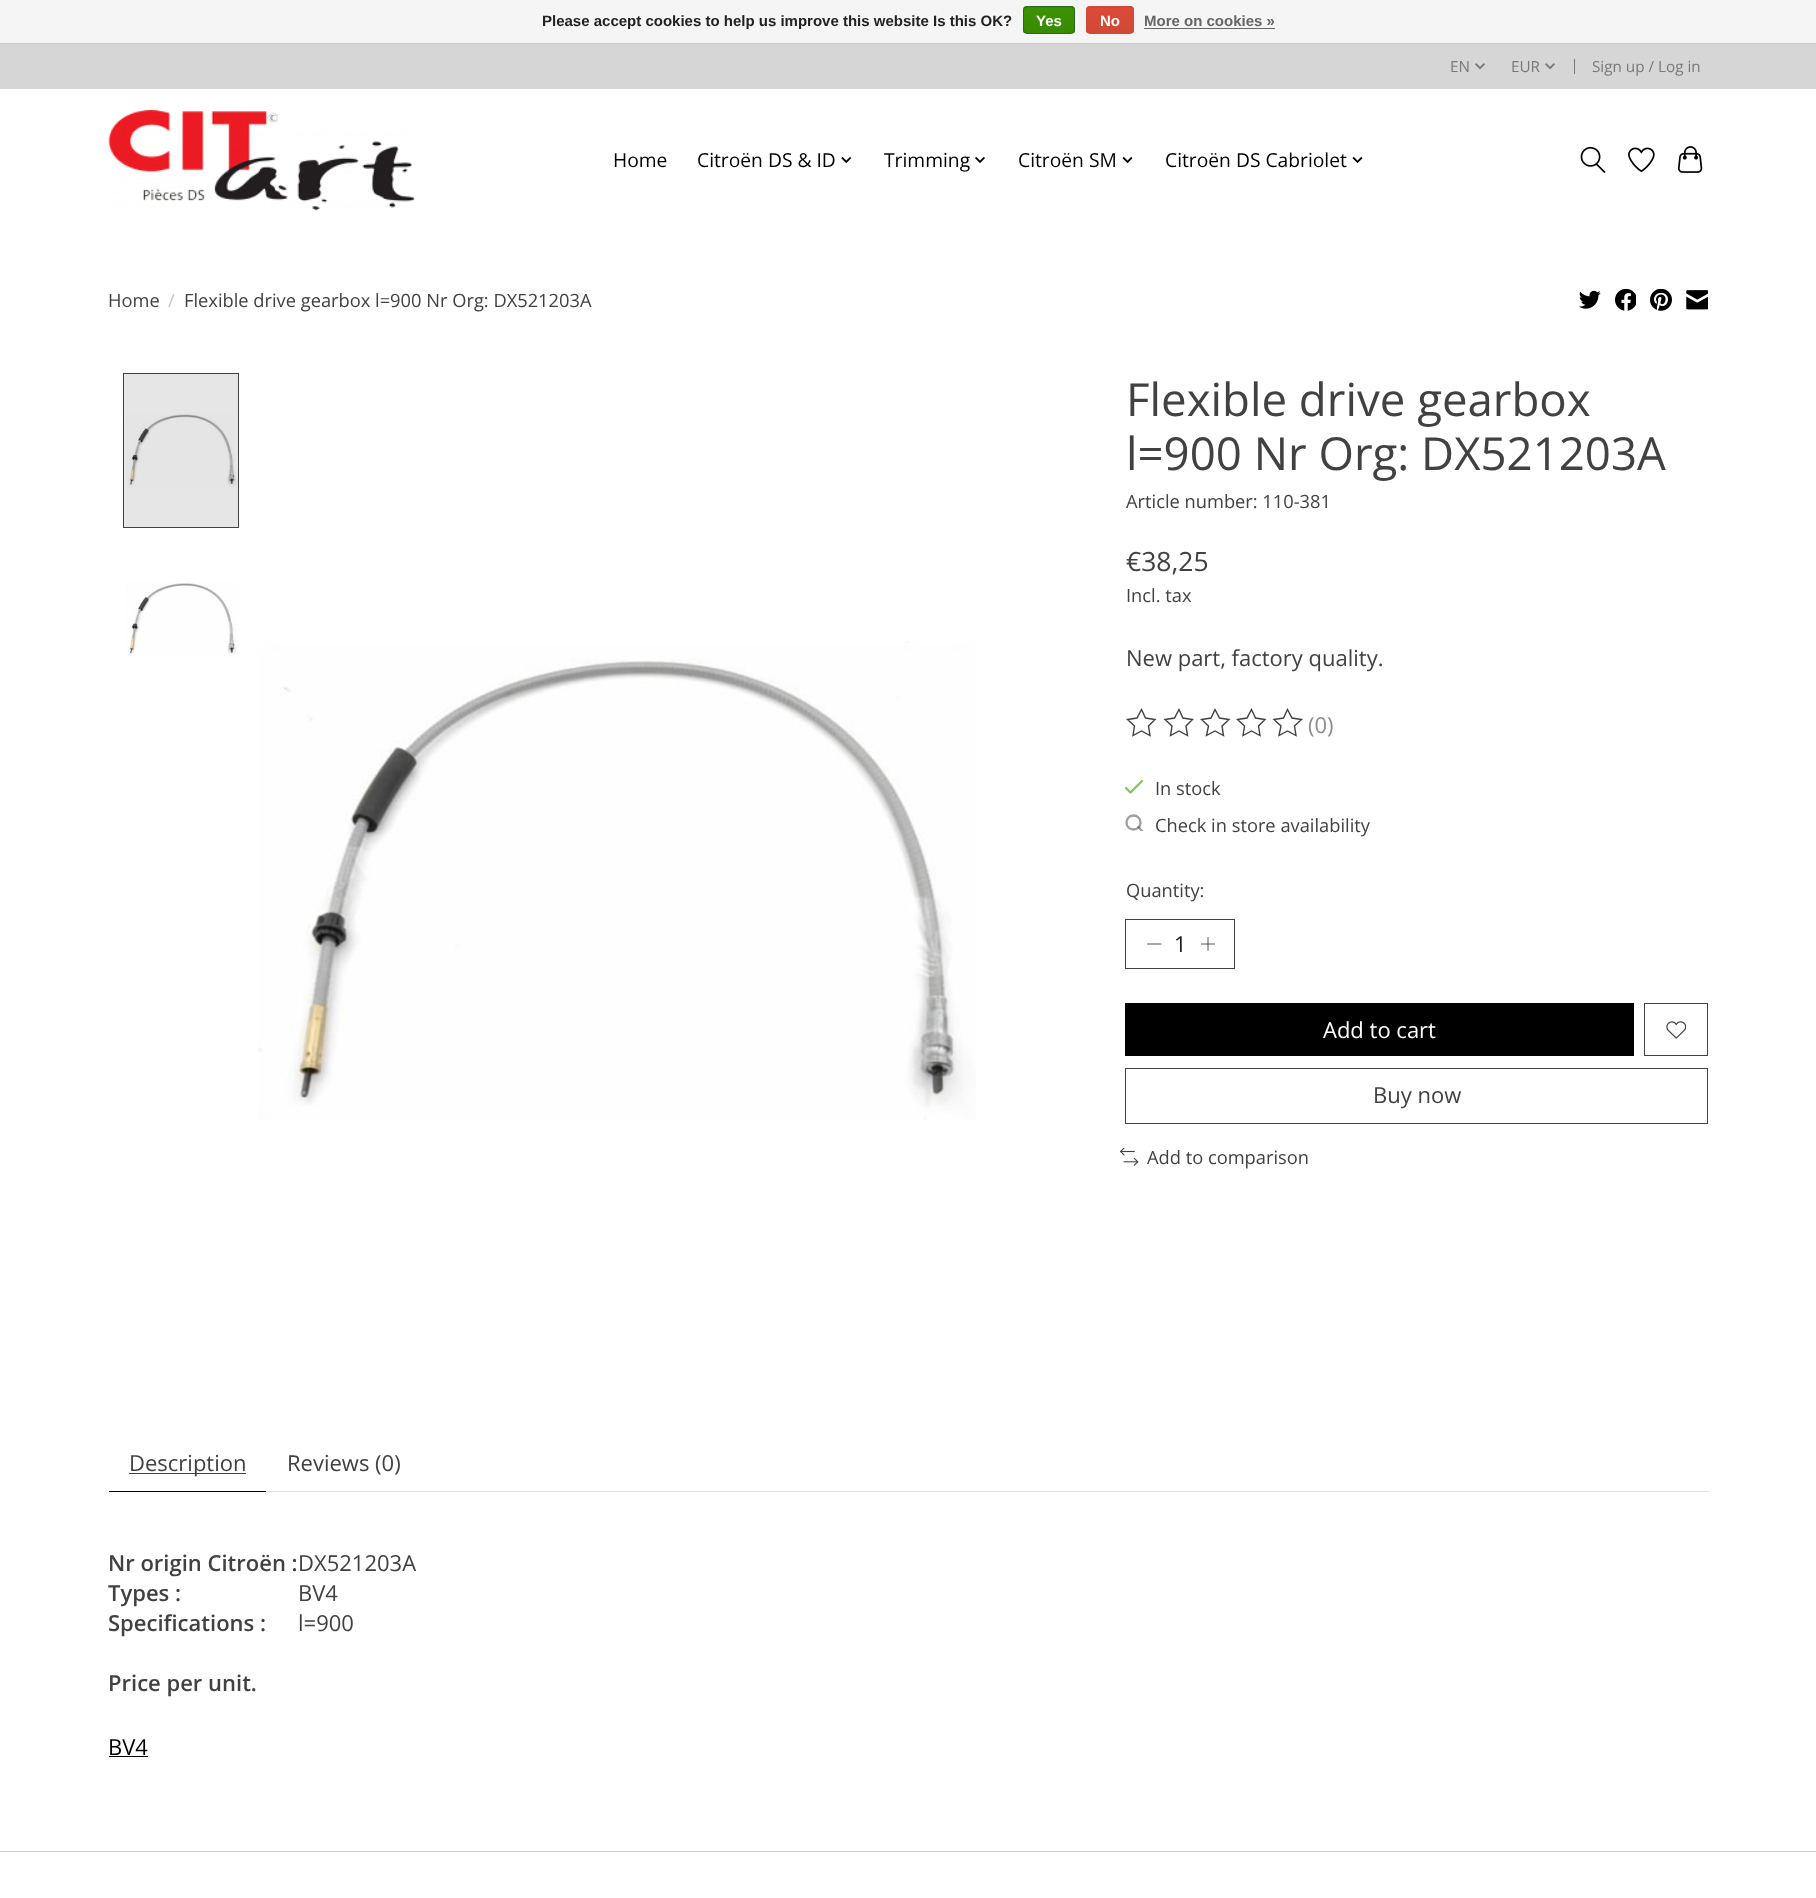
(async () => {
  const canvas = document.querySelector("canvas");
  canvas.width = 1816;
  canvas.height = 1898;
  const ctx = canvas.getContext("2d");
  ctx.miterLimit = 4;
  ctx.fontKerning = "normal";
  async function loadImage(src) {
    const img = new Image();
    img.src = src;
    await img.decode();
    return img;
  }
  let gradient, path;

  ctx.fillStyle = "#ffffff";
  ctx.fillRect(0, 0, 1816, 1898);
  for (const [x, y, w, h, color] of [
    [124, 374, 114, 153, "#e6e6e6"],
    [0, 0, 1816, 43, "#f5f5f5"],
    [0, 43, 1816, 1, "#cccccc"],
  ]) {
    ctx.fillStyle = color;
    ctx.fillRect(x, y, w, h);
  }
  ctx.save();
  ctx.beginPath();
  ctx.roundRect(1023, 6, 52, 28, 4);
  ctx.clip();
  gradient = ctx.createLinearGradient(1049, -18, 1049, 7.5);
  gradient.addColorStop(0, "#3c9300");
  gradient.addColorStop(1, "#398a00");
  ctx.fillStyle = gradient;
  ctx.fillRect(1023, 6, 52, 2);
  gradient = ctx.createLinearGradient(1049, 7.5, 1049, 33);
  gradient.addColorStop(0, "#3c9300");
  gradient.addColorStop(1, "#398a00");
  ctx.fillStyle = gradient;
  ctx.fillRect(1023, 8, 52, 25);
  ctx.restore();
  ctx.beginPath();
  ctx.roundRect(1023.5, 6.5, 51, 27, 3.5);
  ctx.strokeStyle = "#29691d";
  ctx.stroke();
  ctx.save();
  ctx.beginPath();
  ctx.roundRect(1086, 6, 48, 28, 4);
  ctx.clip();
  gradient = ctx.createLinearGradient(1110, -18, 1110, 7.5);
  gradient.addColorStop(0, "#dc4a38");
  gradient.addColorStop(1, "#d14836");
  ctx.fillStyle = gradient;
  ctx.fillRect(1086, 6, 48, 2);
  gradient = ctx.createLinearGradient(1110, 7.5, 1110, 33);
  gradient.addColorStop(0, "#dc4a38");
  gradient.addColorStop(1, "#d14836");
  ctx.fillStyle = gradient;
  ctx.fillRect(1086, 8, 48, 25);
  ctx.restore();
  ctx.beginPath();
  ctx.roundRect(1086.5, 6.5, 47, 27, 3.5);
  ctx.strokeStyle = "#d14836";
  ctx.stroke();
  ctx.fillStyle = "#666666";
  ctx.fillRect(1144, 28, 131, 1);
  ctx.fillStyle = "#d6d6d6";
  ctx.fillRect(0, 44, 1816, 45);
  ctx.drawImage(await loadImage("img/1.png"), 1475, 63, 10, 7);
  ctx.drawImage(await loadImage("img/1.png"), 1545, 63, 10, 7);
  ctx.fillStyle = "#797979";
  ctx.fillRect(1574, 59, 1, 15);
  ctx.drawImage(await loadImage("img/2.png"), 108, 110, 307, 101);
  ctx.drawImage(await loadImage("img/3.png"), 841, 156, 11, 8);
  ctx.drawImage(await loadImage("img/4.png"), 975, 156, 10, 7);
  ctx.drawImage(await loadImage("img/5.png"), 1122, 156, 11, 8);
  ctx.drawImage(await loadImage("img/5.png"), 1352, 156, 11, 8);
  ctx.drawImage(await loadImage("img/6.png"), 1580, 146, 26, 27);
  ctx.drawImage(await loadImage("img/7.png"), 1628, 147, 27, 26);
  ctx.drawImage(await loadImage("img/8.png"), 1678, 146, 25, 27);
  ctx.drawImage(await loadImage("img/9.png"), 1579, 290, 22, 19);
  ctx.drawImage(await loadImage("img/10.png"), 1615, 289, 21, 22);
  ctx.drawImage(await loadImage("img/11.png"), 1650, 289, 22, 22);
  ctx.drawImage(await loadImage("img/12.png"), 1686, 290, 22, 20);
  ctx.drawImage(await loadImage("img/13.png"), 125, 414, 113, 74);
  ctx.strokeStyle = "#414141";
  ctx.strokeRect(123.5, 373.5, 115, 154);
  ctx.drawImage(await loadImage("img/14.png"), 125, 582, 114, 75);
  ctx.drawImage(await loadImage("img/15.png"), 258, 641, 718, 479);
  path = new Path2D("M1141.5 709.5L1145.5 718L1155 719.5L1148.5 726L1150 735.5L1141.5 731L1133 735.5L1134.5 726L1127.5 719.5L1137 718Z");
  ctx.lineWidth = 1.4;
  ctx.stroke(path);
  path = new Path2D("M1179 709.5L1183 718L1192.5 719.5L1186 726L1187.5 735.5L1179 731L1170.5 735.5L1172 726L1165 719.5L1174.5 718Z");
  ctx.stroke(path);
  path = new Path2D("M1215 709.5L1219.5 718L1229 719.5L1222 726L1223.5 735.5L1215 731L1206.5 735.5L1208.5 726L1201.5 719.5L1211 718Z");
  ctx.stroke(path);
  path = new Path2D("M1251.5 709.5L1255.5 718L1265 719.5L1258.5 726L1260 735.5L1251.5 731L1243 735.5L1244.5 726L1237.5 719.5L1247 718Z");
  ctx.stroke(path);
  path = new Path2D("M1287.5 709.5L1292 718L1301.5 719.5L1294.5 726L1296 735.5L1287.5 731L1279 735.5L1281 726L1274 719.5L1283.5 718Z");
  ctx.stroke(path);
  path = new Path2D("M1126 788L1130.5 792.5L1142 781");
  ctx.strokeStyle = "#88c559";
  ctx.lineWidth = 2.3;
  ctx.lineCap = "round";
  ctx.lineJoin = "round";
  ctx.stroke(path);
  ctx.beginPath();
  ctx.arc(1133.5, 822.5, 7, 0, Math.PI * 2);
  ctx.strokeStyle = "#a0a0a0";
  ctx.stroke();
  ctx.save();
  ctx.beginPath();
  ctx.rect(1125, 814, 19, 17);
  ctx.clip();
  path = new Path2D("M1142.5 831.5L1138.5 827");
  ctx.strokeStyle = "rgba(65, 65, 65, 0.5)";
  ctx.stroke(path);
  ctx.restore();
  ctx.strokeStyle = "#414141";
  ctx.lineWidth = 1;
  ctx.lineJoin = "miter";
  ctx.strokeRect(1125.5, 919.5, 109, 49);
  path = new Path2D("M1147.5 944H1161");
  ctx.lineWidth = 0.9;
  ctx.lineJoin = "round";
  ctx.stroke(path);
  path = new Path2D("M1208 937.5V950.5M1201.5 944H1214.5");
  ctx.stroke(path);
  ctx.fillStyle = "#000000";
  ctx.fillRect(1125, 1003, 509, 53);
  ctx.lineWidth = 1;
  ctx.lineJoin = "miter";
  ctx.strokeRect(1644.5, 1003.5, 63, 52);
  ctx.drawImage(await loadImage("img/16.png"), 1666, 1021, 20, 18);
  ctx.strokeRect(1125.5, 1068.5, 582, 55);
  ctx.drawImage(await loadImage("img/17.png"), 1120, 1148, 19, 18);
  for (const [x, y, w, h, color] of [
    [109, 1491, 157, 1, "#000000"],
    [129, 1473, 117, 1, "#414141"],
    [266, 1491, 1443, 1, "#e3e3e3"],
    [109, 1756, 39, 1, "#000000"],
    [0, 1851, 1816, 1, "#cccccc"],
  ]) {
    ctx.fillStyle = color;
    ctx.fillRect(x, y, w, h);
  }
  ctx.font = "bold 15px Liberation Sans";
  ctx.fillStyle = "#222222";
  ctx.fillText("Please accept cookies to help us improve this website Is this OK?", 542, 26);
  ctx.fillStyle = "#ffffff";
  ctx.fillText("Yes", 1036, 26);
  ctx.fillText("No", 1100, 26);
  ctx.fillStyle = "#666666";
  ctx.fillText("More on cookies »", 1144, 26);
  ctx.font = "15.25px Open Sans";
  ctx.fillStyle = "#797979";
  for (const [text, x, y] of [
    ["EN", 1450, 72],
    ["EUR", 1511, 72],
    ["Sign up / Log in", 1592, 72],
  ]) {
    ctx.fillText(text, x, y);
  }
  ctx.font = "19.25px Open Sans";
  ctx.fillStyle = "#000000";
  for (const [text, x, y] of [
    ["Home", 613, 167],
    ["Citroën DS & ID", 697, 167],
    ["Trimming", 884, 167],
    ["Citroën SM", 1018, 167],
    ["Citroën DS Cabriolet", 1165, 167],
  ]) {
    ctx.fillText(text, x, y);
  }
  ctx.font = "18.3px Open Sans";
  ctx.fillStyle = "#414141";
  ctx.fillText("Home", 108, 307);
  ctx.fillStyle = "#c6c6c6";
  ctx.fillText("/", 168, 307);
  ctx.fillStyle = "#414141";
  ctx.fillText("Flexible drive gearbox l=900 Nr Org: DX521203A", 184, 307);
  ctx.font = "45.6px Open Sans";
  ctx.fillText("Flexible drive gearbox", 1126, 416);
  ctx.fillText("l=900 Nr Org: DX521203A", 1126, 470);
  ctx.font = "18.3px Open Sans";
  ctx.fillText("Article number: 110-381", 1126, 508);
  ctx.font = "26.5px Open Sans";
  ctx.fillText("€38,25", 1126, 571);
  ctx.font = "18.3px Open Sans";
  ctx.fillText("Incl. tax", 1126, 602);
  ctx.font = "22px Open Sans";
  ctx.fillText("New part, factory quality.", 1126, 666);
  ctx.fillStyle = "#8d8d8d";
  ctx.fillText("(0)", 1308, 733);
  ctx.font = "18.3px Open Sans";
  ctx.fillStyle = "#414141";
  for (const [text, x, y] of [
    ["In stock", 1155, 795],
    ["Check in store availability", 1155, 832],
    ["Quantity:", 1126, 897],
  ]) {
    ctx.fillText(text, x, y);
  }
  ctx.font = "22px Open Sans";
  ctx.fillStyle = "#1c1c21";
  ctx.fillText("1", 1174, 952);
  ctx.fillStyle = "#ffffff";
  ctx.fillText("Add to cart", 1323, 1038);
  ctx.fillStyle = "#414141";
  ctx.fillText("Buy now", 1373, 1103);
  ctx.font = "18.3px Open Sans";
  ctx.fillText("Add to comparison", 1147, 1164);
  ctx.font = "22px Open Sans";
  ctx.fillText("Description", 129, 1471);
  ctx.fillText("Reviews (0)", 287, 1471);
  ctx.font = "600 22px Open Sans";
  ctx.fillText("Nr origin Citroën :", 108, 1571);
  ctx.font = "22px Open Sans";
  ctx.fillText("DX521203A", 298, 1571);
  ctx.font = "600 22px Open Sans";
  ctx.fillText("Types :", 108, 1601);
  ctx.font = "22px Open Sans";
  ctx.fillText("BV4", 298, 1601);
  ctx.font = "600 22px Open Sans";
  ctx.fillText("Specifications :", 108, 1631);
  ctx.font = "22px Open Sans";
  ctx.fillText("l=900", 298, 1631);
  ctx.font = "600 22px Open Sans";
  ctx.fillText("Price per unit.", 108, 1691);
  ctx.font = "22px Open Sans";
  ctx.fillStyle = "#000000";
  ctx.fillText("BV4", 108, 1755);
})();
